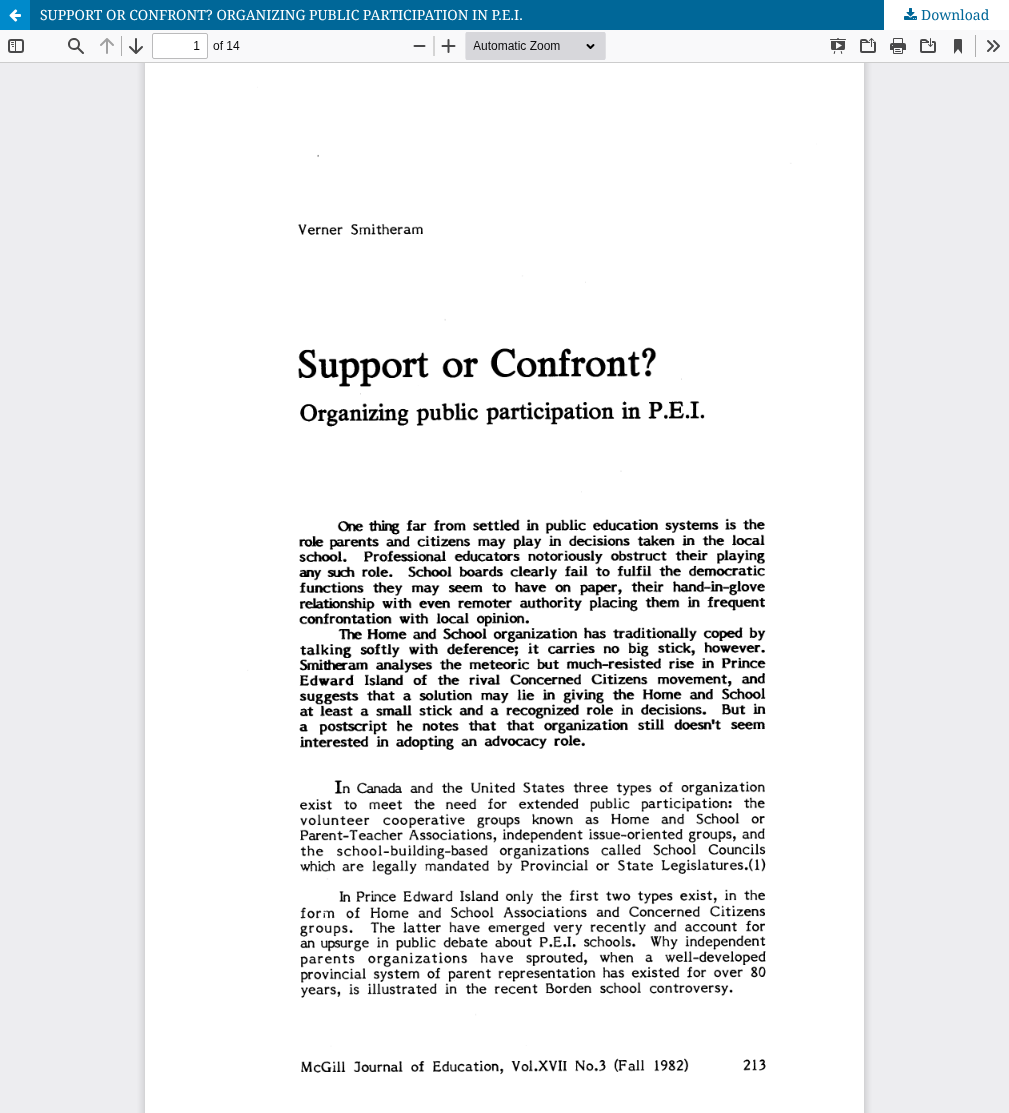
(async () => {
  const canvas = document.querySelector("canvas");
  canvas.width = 1009;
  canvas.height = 1113;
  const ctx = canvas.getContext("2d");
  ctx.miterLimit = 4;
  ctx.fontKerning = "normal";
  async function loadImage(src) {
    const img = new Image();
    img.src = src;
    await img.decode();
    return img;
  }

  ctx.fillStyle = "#ffffff";
  ctx.fillRect(0, 0, 1009, 1113);
  ctx.fillStyle = "#006798";
  ctx.fillRect(30, 0, 854, 30);
  ctx.fillStyle = "#008acb";
  ctx.fillRect(0, 0, 30, 30);
  ctx.drawImage(await loadImage("img/1.png"), 9, 9, 12, 13);
  ctx.drawImage(await loadImage("img/2.png"), 904, 8, 13, 12);
  ctx.drawImage(await loadImage("img/3.png"), 0, 30, 1009, 1083);
  ctx.font = "14px Noto Serif";
  ctx.fillStyle = "#ffffff";
  ctx.fillText("SUPPORT OR CONFRONT? ORGANIZING PUBLIC PARTICIPATION IN P.E.I.", 40, 20);
  ctx.fillStyle = "#006798";
  ctx.fillText("Download", 921, 20);
})();
